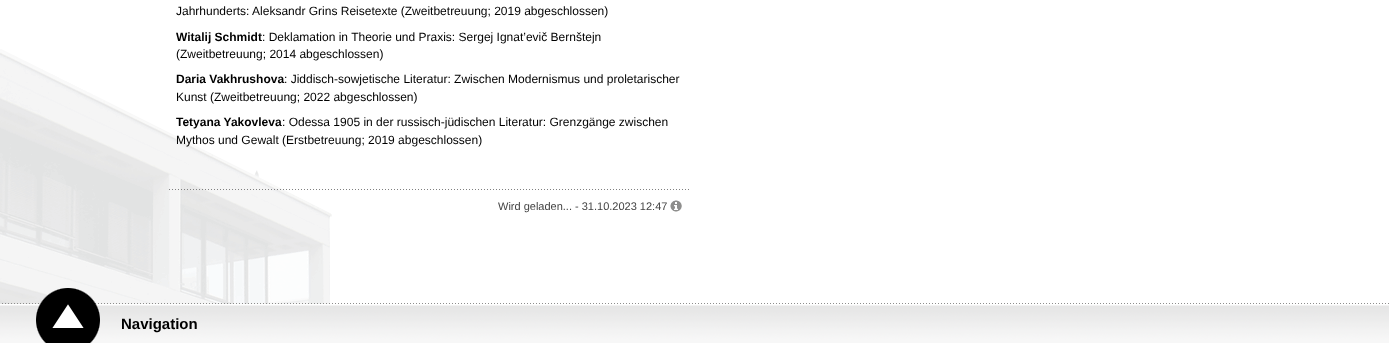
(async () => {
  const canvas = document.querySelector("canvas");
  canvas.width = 1389;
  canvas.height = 343;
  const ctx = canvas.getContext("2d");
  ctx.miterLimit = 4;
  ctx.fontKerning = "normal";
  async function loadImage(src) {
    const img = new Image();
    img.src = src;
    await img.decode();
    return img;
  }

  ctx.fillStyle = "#ffffff";
  ctx.fillRect(0, 0, 1389, 343);
  ctx.drawImage(await loadImage("img/1.png"), 0, 49, 332, 255);
  ctx.drawImage(await loadImage("img/2.png"), 169, 189, 520, 1);
  ctx.drawImage(await loadImage("img/3.png"), 670, 200, 12, 12);
  ctx.drawImage(await loadImage("img/4.png"), 0, 303, 1389, 40);
  ctx.drawImage(await loadImage("img/5.png"), 36, 288, 64, 55);
  ctx.font = "12px Liberation Sans";
  ctx.fillStyle = "#000000";
  ctx.fillText("Jahrhunderts: Aleksandr Grins Reisetexte (Zweitbetreuung; 2019 abgeschlossen)", 176, 15);
  ctx.font = "bold 12px Liberation Sans";
  ctx.fillText("Witalij Schmidt", 176, 41);
  ctx.font = "12px Liberation Sans";
  ctx.fillText(": Deklamation in Theorie und Praxis: Sergej Ignat’evič Bernštejn", 262, 41);
  ctx.fillText("(Zweitbetreuung; 2014 abgeschlossen)", 176, 58);
  ctx.font = "bold 12px Liberation Sans";
  ctx.fillText("Daria Vakhrushova", 176, 83);
  ctx.font = "12px Liberation Sans";
  ctx.fillText(": Jiddisch-sowjetische Literatur: Zwischen Modernismus und proletarischer", 284, 83);
  ctx.fillText("Kunst (Zweitbetreuung; 2022 abgeschlossen)", 176, 101);
  ctx.font = "bold 12px Liberation Sans";
  ctx.fillText("Tetyana Yakovleva", 176, 126);
  ctx.font = "12px Liberation Sans";
  ctx.fillText(": Odessa 1905 in der russisch-jüdischen Literatur: Grenzgänge zwischen", 282, 126);
  ctx.fillText("Mythos und Gewalt (Erstbetreuung; 2019 abgeschlossen)", 176, 144);
  ctx.font = "11px Liberation Sans";
  ctx.fillStyle = "#444444";
  ctx.fillText("Wird geladen... - 31.10.2023 12:47", 498, 210);
  ctx.font = "bold 15px Liberation Sans";
  ctx.fillStyle = "#000000";
  ctx.fillText("Navigation", 121, 329);
})();
